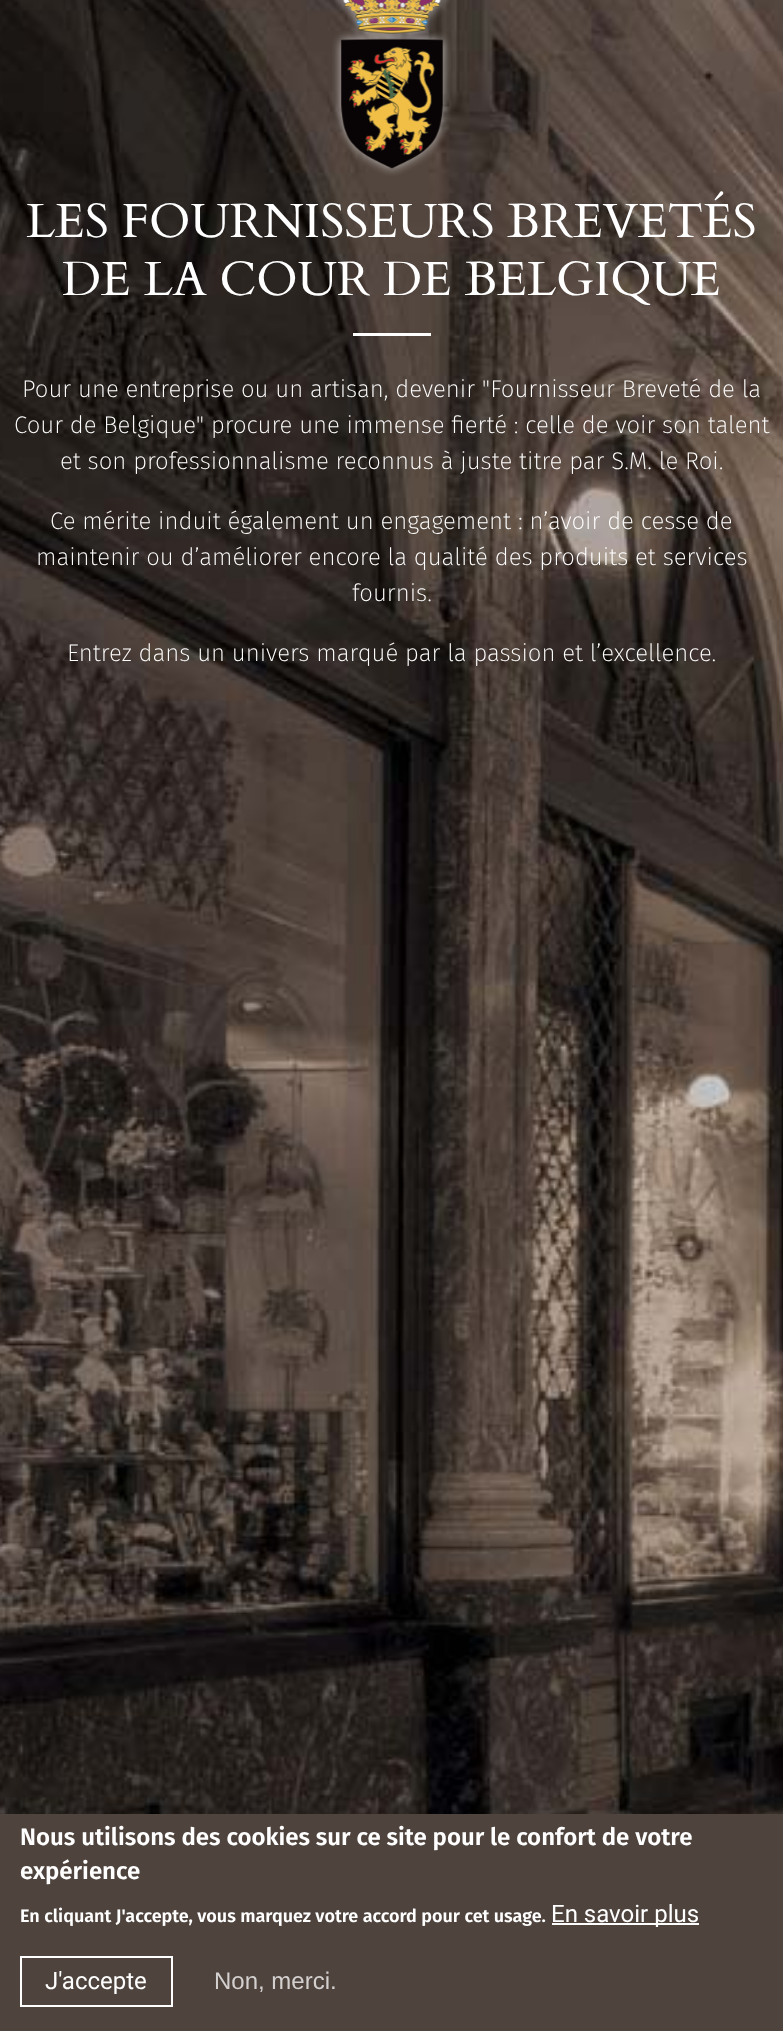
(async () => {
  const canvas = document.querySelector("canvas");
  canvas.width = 783;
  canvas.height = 2031;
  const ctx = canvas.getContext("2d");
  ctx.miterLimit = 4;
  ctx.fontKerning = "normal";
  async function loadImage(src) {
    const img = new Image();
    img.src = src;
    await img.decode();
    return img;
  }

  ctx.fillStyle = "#ffffff";
  ctx.fillRect(0, 0, 783, 2031);
  ctx.drawImage(await loadImage("img/1.png"), 0, 0, 783, 1814);
  ctx.drawImage(await loadImage("img/2.png"), 332, 0, 119, 176);
  for (const [x, y, w, h, color] of [
    [353, 333, 78, 3, "#ffffff"],
    [0, 1814, 783, 217, "#4e433d"],
    [552, 1923, 147, 2, "#ffffff"],
  ]) {
    ctx.fillStyle = color;
    ctx.fillRect(x, y, w, h);
  }
  ctx.strokeStyle = "#ffffff";
  ctx.lineWidth = 2;
  ctx.strokeRect(21, 1957, 151, 49);
  ctx.font = "48px Cardo";
  ctx.fillText("LES FOURNISSEURS BREVETÉS", 26, 237);
  ctx.fillText("DE LA COUR DE BELGIQUE", 62, 295);
  ctx.font = "200 24px Fira Sans";
  for (const [text, x, y] of [
    ["Pour une entreprise ou un artisan, devenir \"Fournisseur Breveté de la", 22, 397],
    ["Cour de Belgique\" procure une immense fierté : celle de voir son talent", 14, 433],
    ["et son professionnalisme reconnus à juste titre par S.M. le Roi.", 60, 469],
    ["Ce mérite induit également un engagement : n’avoir de cesse de", 50, 529],
    ["maintenir ou d’améliorer encore la qualité des produits et services", 36, 565],
    ["fournis.", 352, 601],
    ["Entrez dans un univers marqué par la passion et l’excellence.", 67, 661],
  ]) {
    ctx.fillText(text, x, y);
  }
  ctx.font = "600 24px Fira Sans";
  ctx.fillText("Nous utilisons des cookies sur ce site pour le confort de votre", 20, 1845);
  ctx.fillText("expérience", 20, 1879);
  ctx.font = "600 18px Fira Sans";
  ctx.fillText("En cliquant J'accepte, vous marquez votre accord pour cet usage.", 20, 1922);
  ctx.font = "24px Roboto";
  ctx.fillText("En savoir plus", 551, 1922);
  ctx.fillText("J'accepte", 45, 1989);
  ctx.font = "24px Liberation Sans";
  ctx.fillStyle = "#d3d0cf";
  ctx.fillText("Non, merci.", 214, 1989);
})();
